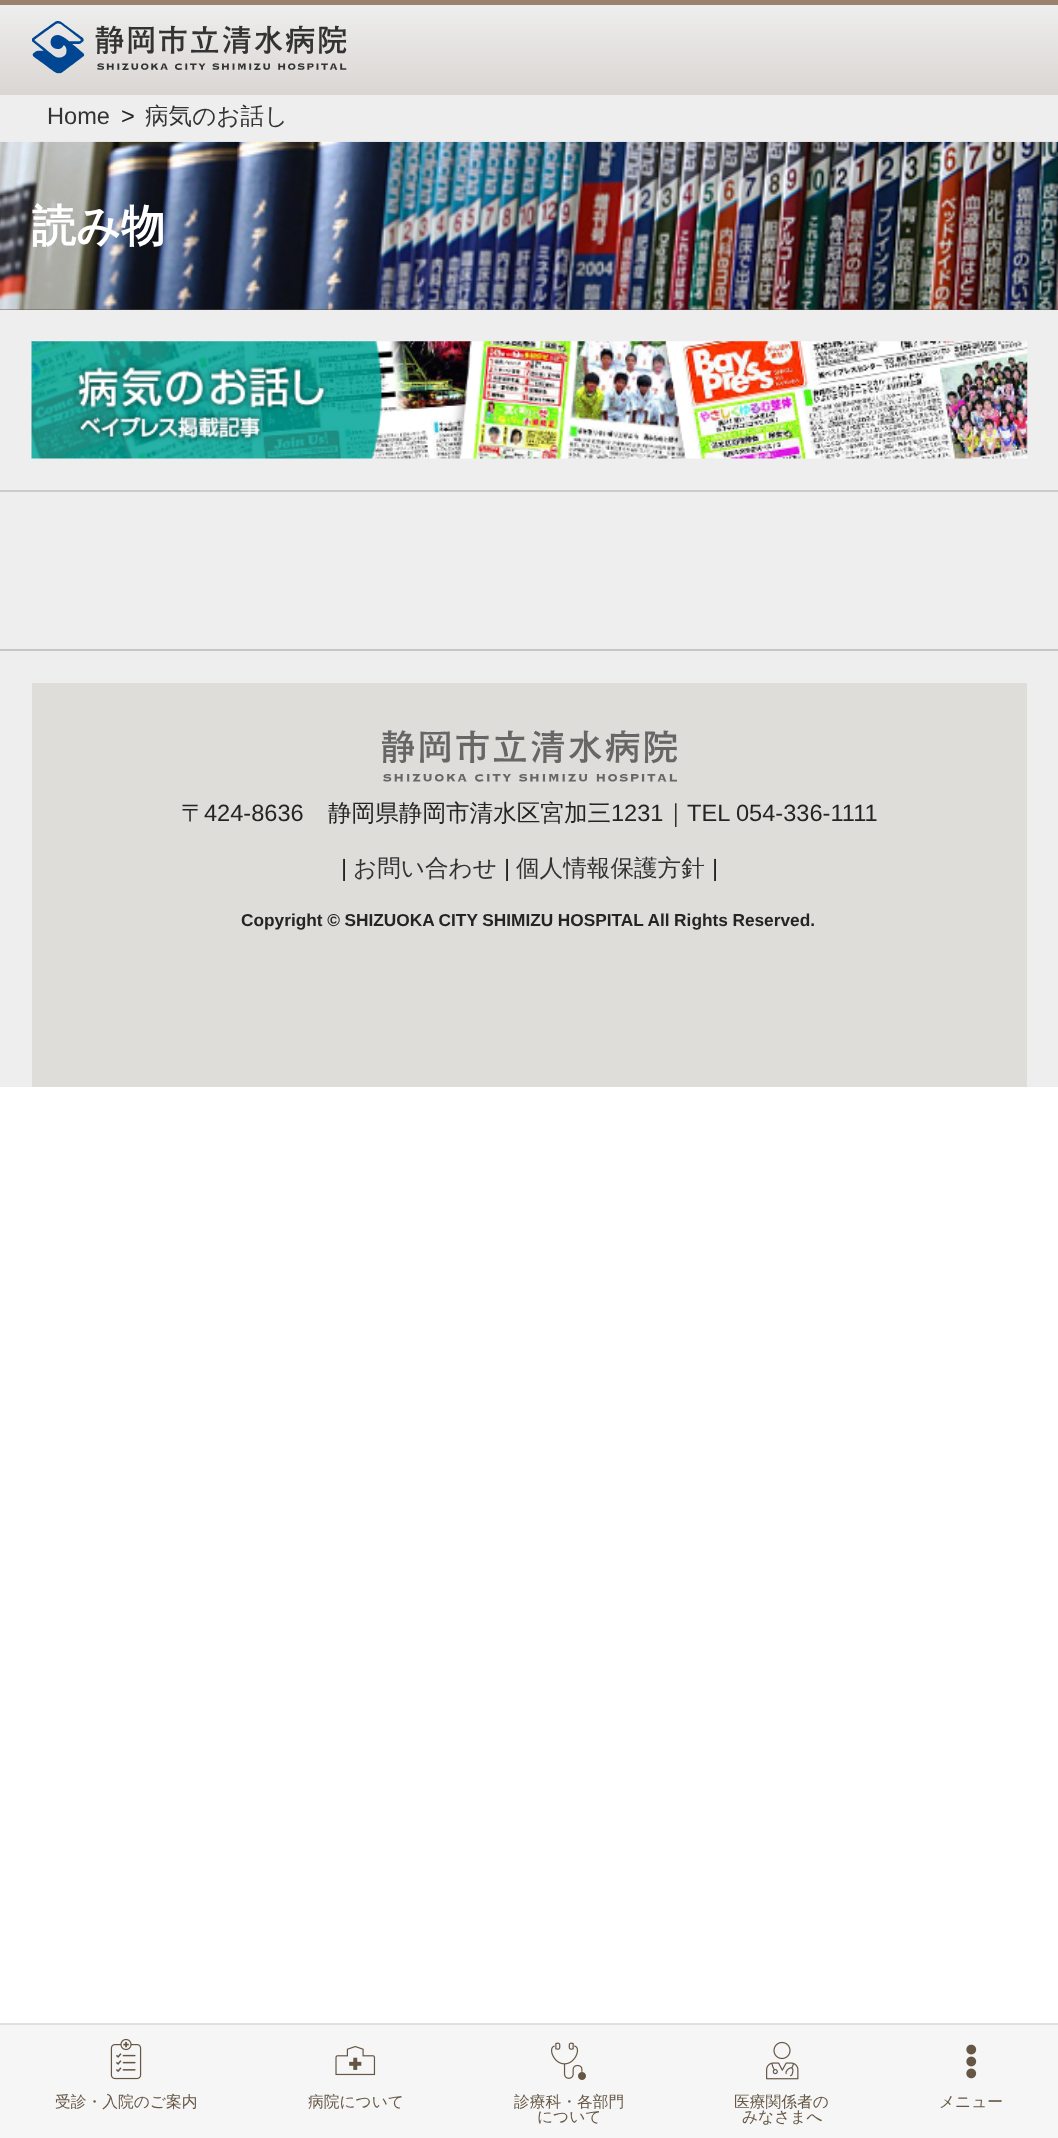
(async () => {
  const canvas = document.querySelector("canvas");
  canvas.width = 1058;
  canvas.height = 2138;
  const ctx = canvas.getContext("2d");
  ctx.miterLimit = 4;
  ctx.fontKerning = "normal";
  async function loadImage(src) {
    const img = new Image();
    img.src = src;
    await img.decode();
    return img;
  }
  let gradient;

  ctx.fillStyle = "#ffffff";
  ctx.fillRect(0, 0, 1058, 2138);
  ctx.fillStyle = "#9b826c";
  ctx.fillRect(0, 0, 1058, 5);
  gradient = ctx.createLinearGradient(529, 5.2, 529, 95);
  gradient.addColorStop(0, "#eeeeee");
  gradient.addColorStop(0.95, "#dbd7d4");
  ctx.fillStyle = gradient;
  ctx.fillRect(0, 5, 1058, 90);
  ctx.drawImage(await loadImage("img/1.png"), 32, 21, 315, 53);
  ctx.fillStyle = "#eeeeee";
  ctx.fillRect(0, 95, 1058, 47);
  ctx.fillStyle = "#5f5140";
  ctx.fillRect(0, 309, 1058, 1);
  ctx.drawImage(await loadImage("img/2.png"), 0, 141, 1058, 169);
  ctx.fillStyle = "#eeeeee";
  ctx.fillRect(0, 310, 1058, 339);
  ctx.drawImage(await loadImage("img/3.png"), 31, 341, 997, 118);
  for (const [x, y, w, h, color] of [
    [0, 490, 1058, 2, "#cccccc"],
    [0, 651, 1058, 436, "#eeeeee"],
    [0, 649, 1058, 2, "#c6c6c6"],
    [32, 683, 995, 404, "#deddda"],
  ]) {
    ctx.fillStyle = color;
    ctx.fillRect(x, y, w, h);
  }
  ctx.drawImage(await loadImage("img/4.png"), 382, 730, 295, 52);
  ctx.fillStyle = "#f6f6f6";
  ctx.fillRect(0, 2025, 1058, 113);
  ctx.fillStyle = "#e0e0e0";
  ctx.fillRect(0, 2023, 1058, 2);
  ctx.drawImage(await loadImage("img/5.png"), 110, 2038, 32, 42);
  ctx.drawImage(await loadImage("img/6.png"), 335, 2045, 41, 31);
  ctx.drawImage(await loadImage("img/7.png"), 551, 2042, 35, 38);
  ctx.drawImage(await loadImage("img/8.png"), 766, 2041, 33, 39);
  ctx.drawImage(await loadImage("img/9.png"), 966, 2044, 11, 35);
  ctx.font = "23.6px Liberation Sans";
  ctx.fillStyle = "#333333";
  ctx.fillText("Home", 47, 124);
  ctx.fillStyle = "#242424";
  ctx.fillText(">", 121, 124);
  ctx.font = "500 23.6px WenQuanYi Zen Hei";
  ctx.fillStyle = "#333333";
  ctx.fillText("病気のお話し", 145, 124);
  ctx.font = "bold 44px WenQuanYi Zen Hei";
  ctx.fillStyle = "#ffffff";
  ctx.fillText("読み物", 32, 241);
  ctx.font = "500 23.6px WenQuanYi Zen Hei";
  ctx.fillStyle = "#242424";
  ctx.fillText("〒", 181, 821);
  ctx.font = "23.6px Liberation Sans";
  ctx.fillText("424-8636", 204, 821);
  ctx.font = "500 23.6px WenQuanYi Zen Hei";
  ctx.fillText("静岡県静岡市清水区宮加三", 328, 821);
  ctx.font = "23.6px Liberation Sans";
  ctx.fillText("1231", 611, 821);
  ctx.font = "500 23.6px WenQuanYi Zen Hei";
  ctx.fillText("｜", 664, 821);
  ctx.font = "23.6px Liberation Sans";
  ctx.fillText("TEL 054-336-1111", 687, 821);
  ctx.fillText("|", 341, 876);
  ctx.font = "500 23.6px WenQuanYi Zen Hei";
  ctx.fillStyle = "#333333";
  ctx.fillText("お問い合わせ", 353, 876);
  ctx.font = "23.6px Liberation Sans";
  ctx.fillStyle = "#242424";
  ctx.fillText("|", 504, 876);
  ctx.font = "500 23.6px WenQuanYi Zen Hei";
  ctx.fillStyle = "#333333";
  ctx.fillText("個人情報保護方針", 516, 876);
  ctx.font = "23.6px Liberation Sans";
  ctx.fillStyle = "#242424";
  ctx.fillText("|", 712, 876);
  ctx.wordSpacing = "-0.25px";
  ctx.font = "bold 17.3px Liberation Sans";
  ctx.fillText("Copyright © SHIZUOKA CITY SHIMIZU HOSPITAL All Rights Reserved.", 241, 926);
  ctx.wordSpacing = "0px";
  ctx.font = "500 15.75px WenQuanYi Zen Hei";
  ctx.fillStyle = "#665745";
  for (const [text, x, y] of [
    ["受診・入院のご案内", 55, 2107],
    ["病院について", 308, 2107],
    ["診療科・各部門", 514, 2107],
    ["について", 537, 2122],
    ["医療関係者の", 734, 2107],
    ["みなさまへ", 742, 2122],
    ["メニュー", 939, 2107],
  ]) {
    ctx.fillText(text, x, y);
  }
})();
